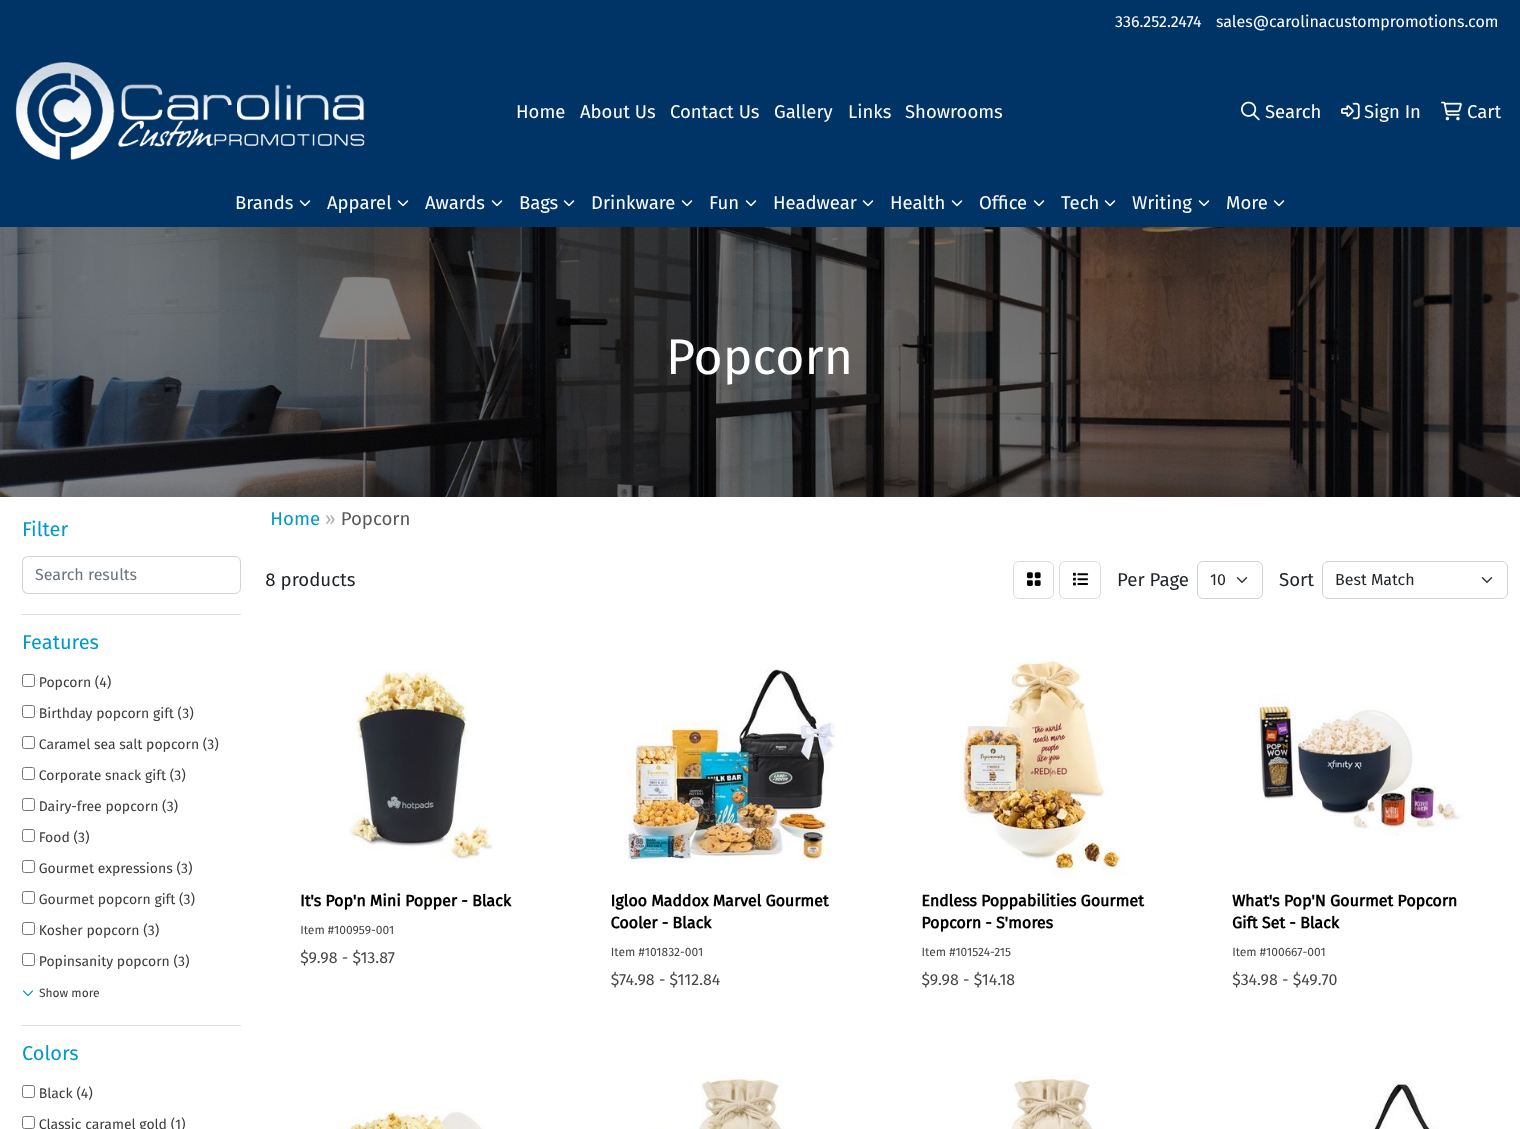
(async () => {
  const canvas = document.querySelector("canvas");
  canvas.width = 1520;
  canvas.height = 1129;
  const ctx = canvas.getContext("2d");
  ctx.miterLimit = 4;
  ctx.fontKerning = "normal";
  async function loadImage(src) {
    const img = new Image();
    img.src = src;
    await img.decode();
    return img;
  }

  ctx.fillStyle = "#ffffff";
  ctx.fillRect(0, 0, 1520, 1129);
  ctx.fillStyle = "#003366";
  ctx.fillRect(0, 0, 1520, 227);
  ctx.drawImage(await loadImage("img/1.png"), 15, 62, 350, 98);
  ctx.drawImage(await loadImage("img/2.png"), 1241, 101, 19, 20);
  ctx.drawImage(await loadImage("img/3.png"), 1341, 102, 19, 18);
  ctx.drawImage(await loadImage("img/4.png"), 1441, 101, 21, 20);
  ctx.drawImage(await loadImage("img/5.png"), 299, 200, 12, 7);
  ctx.drawImage(await loadImage("img/5.png"), 397, 200, 12, 7);
  ctx.drawImage(await loadImage("img/5.png"), 491, 200, 12, 7);
  ctx.drawImage(await loadImage("img/5.png"), 563, 200, 12, 7);
  ctx.drawImage(await loadImage("img/5.png"), 681, 200, 12, 7);
  ctx.drawImage(await loadImage("img/5.png"), 745, 200, 12, 7);
  ctx.drawImage(await loadImage("img/5.png"), 862, 200, 12, 7);
  ctx.drawImage(await loadImage("img/5.png"), 951, 200, 12, 7);
  ctx.drawImage(await loadImage("img/5.png"), 1033, 200, 12, 7);
  ctx.drawImage(await loadImage("img/5.png"), 1104, 200, 12, 7);
  ctx.drawImage(await loadImage("img/5.png"), 1198, 200, 12, 7);
  ctx.drawImage(await loadImage("img/5.png"), 1273, 200, 12, 7);
  ctx.drawImage(await loadImage("img/6.png"), 0, 227, 1520, 270);
  ctx.drawImage(await loadImage("img/7.png"), 22, 512, 1486, 617);
  ctx.font = "16px Fira Sans";
  ctx.fillStyle = "#ffffff";
  ctx.fillText("336.252.2474", 1115, 27);
  ctx.fillText("sales@carolinacustompromotions.com", 1216, 27);
  ctx.font = "18.5px Fira Sans";
  for (const [text, x, y] of [
    ["Home", 516, 118],
    ["About Us", 580, 118],
    ["Contact Us", 670, 118],
    ["Gallery", 774, 118],
    ["Links", 848, 118],
    ["Showrooms", 905, 118],
    ["Search", 1265, 118],
    ["Sign In", 1364, 118],
    ["Cart", 1467, 118],
    ["Brands", 235, 209],
    ["Apparel", 327, 209],
    ["Awards", 425, 209],
    ["Bags", 519, 209],
    ["Drinkware", 591, 209],
    ["Fun", 709, 209],
    ["Headwear", 773, 209],
    ["Health", 890, 209],
    ["Office", 979, 209],
    ["Tech", 1061, 209],
    ["Writing", 1132, 209],
    ["More", 1226, 209],
  ]) {
    ctx.fillText(text, x, y);
  }
  ctx.font = "50px Fira Sans";
  ctx.fillText("Popcorn", 666, 374);
})();
